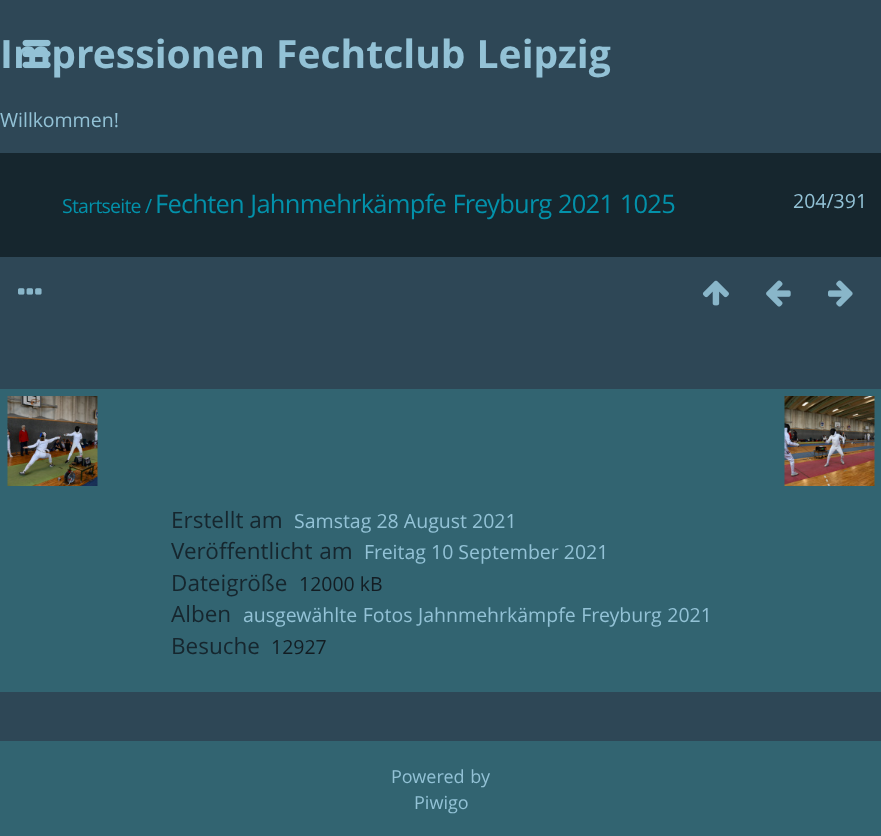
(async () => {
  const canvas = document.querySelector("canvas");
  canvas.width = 881;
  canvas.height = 836;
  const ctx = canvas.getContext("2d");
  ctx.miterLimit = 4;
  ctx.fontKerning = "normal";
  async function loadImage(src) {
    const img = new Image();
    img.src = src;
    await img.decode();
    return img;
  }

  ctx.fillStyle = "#2e4756";
  ctx.fillRect(0, 0, 881, 836);
  ctx.fillStyle = "#16262e";
  ctx.fillRect(0, 153, 881, 104);
  ctx.drawImage(await loadImage("img/2.png"), 18, 288, 24, 7);
  ctx.drawImage(await loadImage("img/3.png"), 702, 280, 27, 26);
  ctx.drawImage(await loadImage("img/4.png"), 766, 280, 25, 27);
  ctx.drawImage(await loadImage("img/5.png"), 828, 280, 25, 27);
  ctx.fillStyle = "#326471";
  ctx.fillRect(0, 389, 881, 303);
  ctx.drawImage(await loadImage("img/6.png"), 7, 396, 91, 90);
  ctx.drawImage(await loadImage("img/7.png"), 784, 396, 91, 90);
  ctx.fillRect(0, 741, 881, 95);
  ctx.wordSpacing = "1px";
  ctx.font = "bold 39px Open Sans";
  ctx.fillStyle = "#93c2d6";
  ctx.fillText("Impressionen Fechtclub Leipzig", 0, 68);
  ctx.wordSpacing = "0px";
  ctx.font = "19.5px Open Sans";
  ctx.fillText("Willkommen!", 0, 127);
  ctx.drawImage(await loadImage("img/1.png"), 22, 39, 29, 30);
  ctx.letterSpacing = "-0.75px";
  ctx.fillStyle = "#0391aa";
  ctx.fillText("Startseite /", 62, 213);
  ctx.wordSpacing = "0.5px";
  ctx.font = "25.5px Open Sans";
  ctx.fillText("Fechten Jahnmehrkämpfe Freyburg 2021 1025", 155, 213);
  ctx.letterSpacing = "0px";
  ctx.wordSpacing = "0px";
  ctx.font = "19.5px Open Sans";
  ctx.fillStyle = "#93c2d6";
  ctx.fillText("204/391", 793, 208);
  ctx.font = "22.5px Open Sans";
  ctx.fillStyle = "#16262e";
  ctx.fillText("Erstellt am", 171, 528);
  ctx.font = "19.5px Open Sans";
  ctx.fillStyle = "#93c2d6";
  ctx.fillText("Samstag 28 August 2021", 294, 528);
  ctx.wordSpacing = "1px";
  ctx.font = "22.5px Open Sans";
  ctx.fillStyle = "#16262e";
  ctx.fillText("Veröffentlicht am", 171, 559);
  ctx.wordSpacing = "0px";
  ctx.font = "19.5px Open Sans";
  ctx.fillStyle = "#93c2d6";
  ctx.fillText("Freitag 10 September 2021", 364, 559);
  ctx.font = "22.5px Open Sans";
  ctx.fillStyle = "#16262e";
  ctx.fillText("Dateigröße", 171, 591);
  ctx.font = "19.5px Open Sans";
  ctx.fillStyle = "#131d23";
  ctx.fillText("12000 kB", 299, 591);
  ctx.font = "22.5px Open Sans";
  ctx.fillStyle = "#16262e";
  ctx.fillText("Alben", 171, 622);
  ctx.wordSpacing = "0.5px";
  ctx.font = "19.5px Open Sans";
  ctx.fillStyle = "#93c2d6";
  ctx.fillText("ausgewählte Fotos Jahnmehrkämpfe Freyburg 2021", 243, 622);
  ctx.wordSpacing = "0px";
  ctx.font = "22.5px Open Sans";
  ctx.fillStyle = "#16262e";
  ctx.fillText("Besuche", 171, 654);
  ctx.font = "19.5px Open Sans";
  ctx.fillStyle = "#131d23";
  ctx.fillText("12927", 271, 654);
  ctx.wordSpacing = "1px";
  ctx.font = "18px Open Sans";
  ctx.fillStyle = "#93c2d6";
  ctx.fillText("Powered by", 391, 783);
  ctx.wordSpacing = "0px";
  ctx.fillText("Piwigo", 414, 809);
})();
